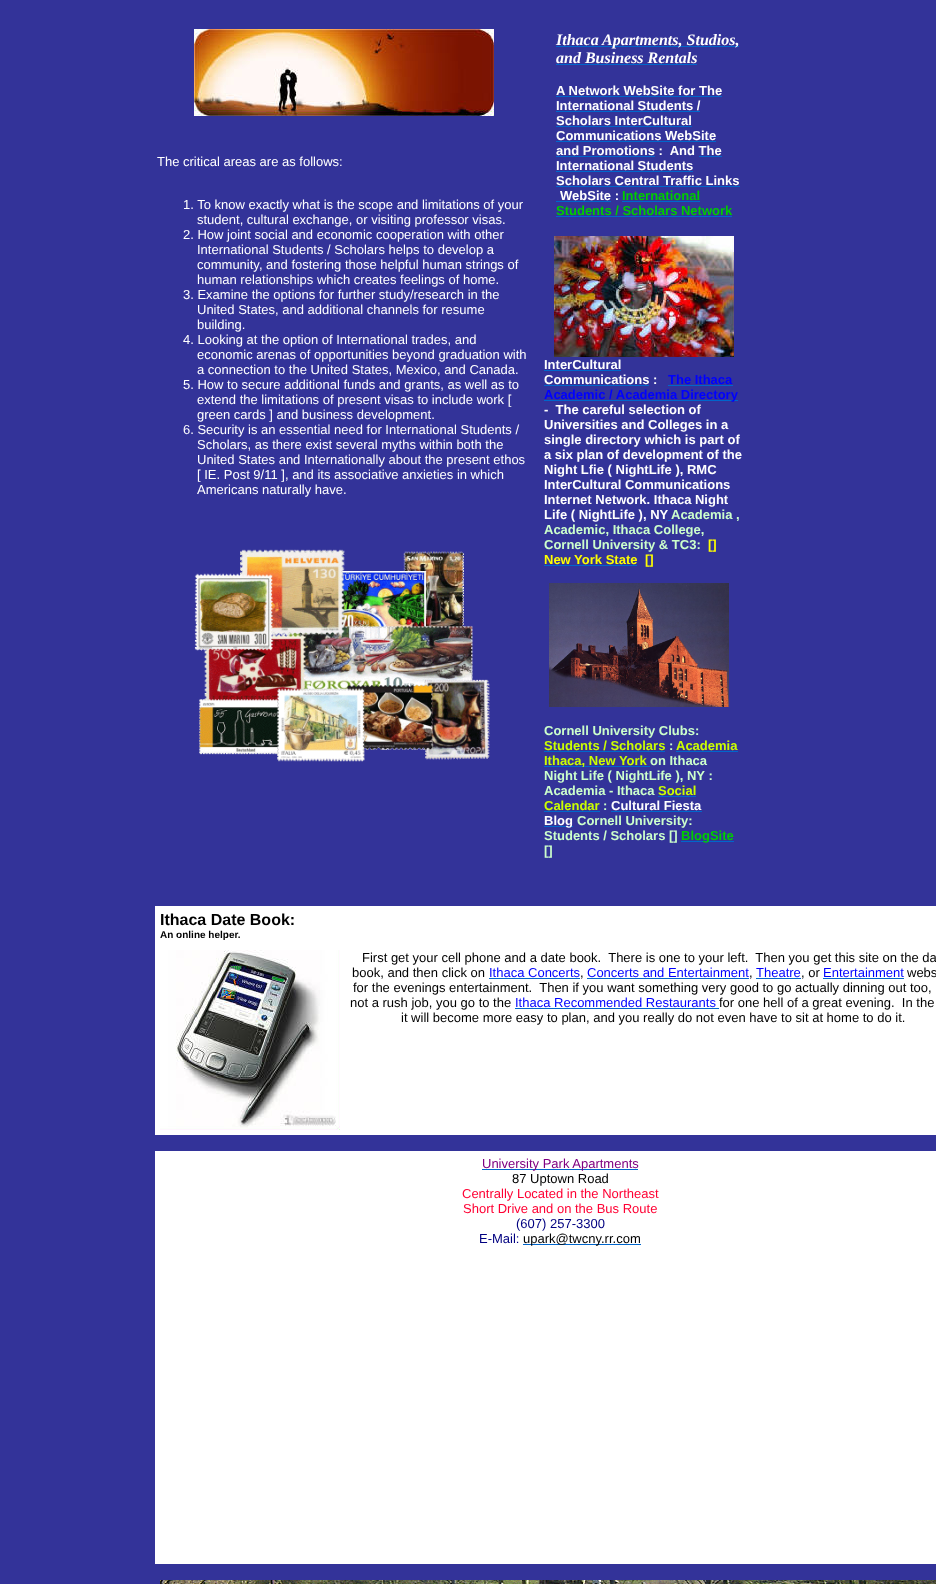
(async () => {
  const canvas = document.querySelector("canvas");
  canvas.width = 936;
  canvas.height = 1584;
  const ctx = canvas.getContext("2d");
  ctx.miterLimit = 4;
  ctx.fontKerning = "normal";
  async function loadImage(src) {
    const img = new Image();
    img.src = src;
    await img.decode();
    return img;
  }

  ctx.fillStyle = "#333399";
  ctx.fillRect(0, 0, 936, 1584);
  ctx.drawImage(await loadImage("img/1.png"), 194, 29, 300, 87);
  ctx.drawImage(await loadImage("img/2.png"), 194, 549, 296, 213);
  for (const [x, y, w, h, color] of [
    [556, 46, 183, 1, "#0066cc"],
    [556, 64, 141, 1, "#0066cc"],
    [556, 96, 166, 1, "#0066cc"],
    [556, 111, 144, 1, "#0066cc"],
    [556, 126, 136, 1, "#0066cc"],
    [556, 141, 160, 1, "#0066cc"],
    [556, 156, 99, 1, "#0066cc"],
    [699, 156, 23, 1, "#0066cc"],
    [556, 171, 137, 1, "#0066cc"],
    [556, 186, 184, 1, "#0066cc"],
    [556, 201, 55, 1, "#0066cc"],
    [622, 201, 78, 1, "#0066cc"],
    [556, 216, 176, 1, "#0066cc"],
  ]) {
    ctx.fillStyle = color;
    ctx.fillRect(x, y, w, h);
  }
  ctx.drawImage(await loadImage("img/3.png"), 554, 236, 180, 121);
  for (const [x, y, w, h, color] of [
    [544, 370, 77, 1, "#0066cc"],
    [544, 385, 105, 1, "#0066cc"],
    [668, 385, 65, 1, "#0066cc"],
    [544, 400, 194, 1, "#0066cc"],
    [668, 520, 3, 1, "#0066cc"],
    [544, 565, 93, 1, "#0066cc"],
  ]) {
    ctx.fillStyle = color;
    ctx.fillRect(x, y, w, h);
  }
  ctx.drawImage(await loadImage("img/4.png"), 549, 583, 180, 124);
  for (const [x, y, w, h, color] of [
    [544, 751, 121, 1, "#0066cc"],
    [676, 751, 62, 1, "#0066cc"],
    [544, 766, 106, 1, "#0066cc"],
    [658, 796, 38, 1, "#0066cc"],
    [544, 811, 56, 1, "#0066cc"],
    [611, 811, 91, 1, "#0066cc"],
    [544, 826, 29, 1, "#0066cc"],
    [681, 841, 53, 1, "#0066cc"],
    [155, 906, 781, 39, "#ffffff"],
    [155, 945, 781, 190, "#ffffff"],
  ]) {
    ctx.fillStyle = color;
    ctx.fillRect(x, y, w, h);
  }
  ctx.drawImage(await loadImage("img/5.png"), 160, 950, 180, 180);
  for (const [x, y, w, h, color] of [
    [489, 978, 91, 1, "#0066cc"],
    [587, 978, 162, 1, "#0066cc"],
    [756, 978, 45, 1, "#0066cc"],
    [823, 978, 81, 1, "#0066cc"],
    [515, 1008, 204, 1, "#0066cc"],
    [155, 1151, 781, 413, "#ffffff"],
    [482, 1169, 156, 1, "#0066cc"],
    [523, 1244, 118, 1, "#0066cc"],
  ]) {
    ctx.fillStyle = color;
    ctx.fillRect(x, y, w, h);
  }
  ctx.drawImage(await loadImage("img/6.png"), 160, 1580, 776, 4);
  ctx.font = "13px Liberation Sans";
  ctx.fillStyle = "#ffffff";
  for (const [text, x, y] of [
    ["The critical areas are as follows:", 157, 166],
    ["1. To know exactly what is the scope and limitations of your", 183, 209],
    ["student, cultural exchange, or visiting professor visas.", 197, 224],
    ["2. How joint social and economic cooperation with other", 183, 239],
    ["International Students / Scholars helps to develop a", 197, 254],
    ["community, and fostering those helpful human strings of", 197, 269],
    ["human relationships which creates feelings of home.", 197, 284],
    ["3. Examine the options for further study/research in the", 183, 299],
    ["United States, and additional channels for resume", 197, 314],
    ["building.", 197, 329],
    ["4. Looking at the option of International trades, and", 183, 344],
    ["economic arenas of opportunities beyond graduation with", 197, 359],
    ["a connection to the United States, Mexico, and Canada.", 197, 374],
    ["5. How to secure additional funds and grants, as well as to", 183, 389],
    ["extend the limitations of present visas to include work [", 197, 404],
    ["green cards ] and business development.", 197, 419],
    ["6. Security is an essential need for International Students /", 183, 434],
    ["Scholars, as there exist several myths within both the", 197, 449],
    ["United States and Internationally about the present ethos", 197, 464],
    ["[ IE. Post 9/11 ], and its associative anxieties in which", 197, 479],
    ["Americans naturally have.", 197, 494],
  ]) {
    ctx.fillText(text, x, y);
  }
  ctx.font = "italic bold 16px Liberation Serif";
  ctx.fillText("Ithaca Apartments, Studios,", 556, 45);
  ctx.fillText("and Business Rentals", 556, 63);
  ctx.font = "bold 13px Liberation Sans";
  for (const [text, x, y] of [
    ["A Network WebSite for The", 556, 95],
    ["International Students /", 556, 110],
    ["Scholars InterCultural", 556, 125],
    ["Communications WebSite", 556, 140],
    ["and Promotions :  And The", 556, 155],
    ["International Students", 556, 170],
    ["Scholars Central Traffic Links", 556, 185],
    ["WebSite :", 560, 200],
  ]) {
    ctx.fillText(text, x, y);
  }
  ctx.fillStyle = "#00cc00";
  ctx.fillText("International", 622, 200);
  ctx.fillText("Students / Scholars Network", 556, 215);
  ctx.fillStyle = "#ffffff";
  ctx.fillText("InterCultural", 544, 369);
  ctx.fillText("Communications :", 544, 384);
  ctx.fillStyle = "#0000ff";
  ctx.fillText("The Ithaca", 668, 384);
  ctx.fillText("Academic / Academia Directory", 544, 399);
  ctx.fillStyle = "#ffffff";
  for (const [text, x, y] of [
    ["-  The careful selection of", 544, 414],
    ["Universities and Colleges in a", 544, 429],
    ["single directory which is part of", 544, 444],
    ["a six plan of development of the", 544, 459],
    ["Night Lfie ( NightLife ), RMC", 544, 474],
    ["InterCultural Communications", 544, 489],
    ["Internet Network. Ithaca Night", 544, 504],
    ["Life ( NightLife ), NY", 544, 519],
  ]) {
    ctx.fillText(text, x, y);
  }
  ctx.fillStyle = "#ccffcc";
  for (const [text, x, y] of [
    ["Academia ,", 671, 519],
    ["Academic, Ithaca College,", 544, 534],
    ["Cornell University & TC3:", 544, 549],
  ]) {
    ctx.fillText(text, x, y);
  }
  ctx.fillStyle = "#ffff00";
  for (const [text, x, y] of [
    ["[]", 708, 549],
    ["New York State", 544, 564],
    ["[]", 645, 564],
  ]) {
    ctx.fillText(text, x, y);
  }
  ctx.fillStyle = "#ccffcc";
  ctx.fillText("Cornell University Clubs:", 544, 735);
  ctx.fillStyle = "#ccff00";
  ctx.fillText("Students / Scholars", 544, 750);
  ctx.fillStyle = "#ccffcc";
  ctx.fillText(":", 669, 750);
  ctx.fillStyle = "#ccff00";
  ctx.fillText("Academia", 676, 750);
  ctx.fillText("Ithaca, New York", 544, 765);
  ctx.fillStyle = "#ccffcc";
  for (const [text, x, y] of [
    ["on Ithaca", 650, 765],
    ["Night Life ( NightLife ), NY :", 544, 780],
    ["Academia - Ithaca", 544, 795],
  ]) {
    ctx.fillText(text, x, y);
  }
  ctx.fillStyle = "#ccff00";
  ctx.fillText("Social", 658, 795);
  ctx.fillText("Calendar", 544, 810);
  ctx.fillStyle = "#ccffcc";
  ctx.fillText(":", 603, 810);
  ctx.fillStyle = "#ffffff";
  ctx.fillText("Cultural Fiesta", 611, 810);
  ctx.fillText("Blog", 544, 825);
  ctx.fillStyle = "#ccffcc";
  ctx.fillText("Cornell University:", 577, 825);
  ctx.fillText("Students / Scholars []", 544, 840);
  ctx.fillStyle = "#00cc00";
  ctx.fillText("BlogSite", 681, 840);
  ctx.fillStyle = "#ccffcc";
  ctx.fillText("[]", 544, 855);
  ctx.font = "bold 16px Liberation Sans";
  ctx.fillStyle = "#000000";
  ctx.fillText("Ithaca Date Book:", 160, 925);
  ctx.font = "bold 10px Liberation Sans";
  ctx.fillText("An online helper.", 160, 938);
  ctx.font = "13px Liberation Sans";
  ctx.fillText("First get your cell phone and a date book.  There is one to your left.  Then you get this site on the da", 362, 962);
  ctx.fillText("book, and then click on", 352, 977);
  ctx.fillStyle = "#0000ff";
  ctx.fillText("Ithaca Concerts", 489, 977);
  ctx.fillStyle = "#000000";
  ctx.fillText(",", 580, 977);
  ctx.fillStyle = "#0000ff";
  ctx.fillText("Concerts and Entertainment", 587, 977);
  ctx.fillStyle = "#000000";
  ctx.fillText(",", 749, 977);
  ctx.fillStyle = "#0000ff";
  ctx.fillText("Theatre", 756, 977);
  ctx.fillStyle = "#000000";
  ctx.fillText(", or", 801, 977);
  ctx.fillStyle = "#0000ff";
  ctx.fillText("Entertainment", 823, 977);
  ctx.fillStyle = "#000000";
  for (const [text, x, y] of [
    ["webs", 907, 977],
    ["for the evenings entertainment.  Then if you want something very good to go actually dinning out too,", 353, 992],
    ["not a rush job, you go to the", 350, 1007],
  ]) {
    ctx.fillText(text, x, y);
  }
  ctx.fillStyle = "#0000ff";
  ctx.fillText("Ithaca Recommended Restaurants", 515, 1007);
  ctx.fillStyle = "#000000";
  ctx.fillText("for one hell of a great evening.  In the", 719, 1007);
  ctx.fillText("it will become more easy to plan, and you really do not even have to sit at home to do it.", 401, 1022);
  ctx.fillStyle = "#800080";
  ctx.fillText("University Park Apartments", 482, 1168);
  ctx.fillStyle = "#000000";
  ctx.fillText("87 Uptown Road", 512, 1183);
  ctx.fillStyle = "#ff0033";
  ctx.fillText("Centrally Located in the Northeast", 462, 1198);
  ctx.fillText("Short Drive and on the Bus Route", 463, 1213);
  ctx.fillStyle = "#000080";
  ctx.fillText("(607) 257-3300", 516, 1228);
  ctx.fillText("E-Mail:", 479, 1243);
  ctx.fillStyle = "#000000";
  ctx.fillText("upark@twcny.rr.com", 523, 1243);
})();
